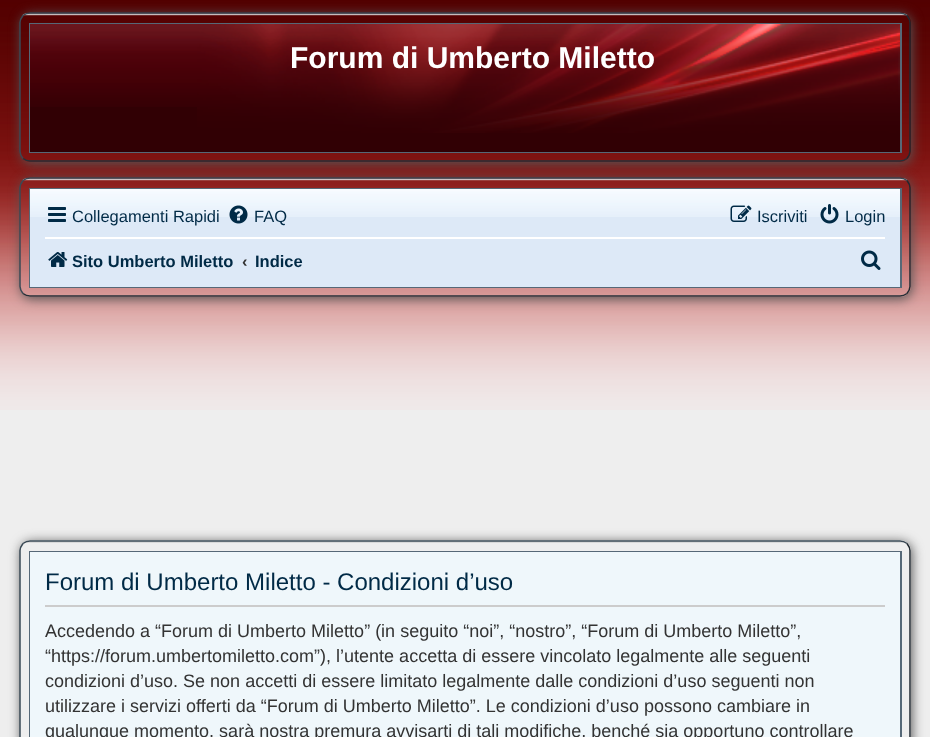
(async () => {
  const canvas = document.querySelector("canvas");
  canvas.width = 930;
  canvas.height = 737;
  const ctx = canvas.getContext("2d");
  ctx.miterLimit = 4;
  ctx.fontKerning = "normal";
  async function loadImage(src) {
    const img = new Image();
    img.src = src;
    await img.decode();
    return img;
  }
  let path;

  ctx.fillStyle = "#eeeeee";
  ctx.fillRect(0, 0, 930, 737);
  ctx.drawImage(await loadImage("img/1.png"), 0, 0, 930, 410);
  ctx.save();
  path = new Path2D("M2 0H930V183H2ZM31 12H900C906 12 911 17 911 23V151C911 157 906 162 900 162H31C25 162 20 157 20 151V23C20 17 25 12 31 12Z");
  ctx.clip(path, "evenodd");
  ctx.fillStyle = "#555555";
  ctx.filter = "blur(6px)";
  ctx.beginPath();
  ctx.roundRect(21, 14, 891, 150, 11);
  ctx.fill();
  ctx.filter = "none";
  ctx.restore();
  ctx.drawImage(await loadImage("img/2.png"), 22, 13, 886, 3);
  path = new Path2D("M23 15.5C25 14 27.5 13 30 13H900C902.5 13 905 14 907 15.5");
  ctx.strokeStyle = "#394854";
  ctx.lineWidth = 1.5;
  ctx.stroke(path);
  path = new Path2D("M907 15.5C908.5 17.5 910 20 910 22.5V151.5C910 154 908.5 156.5 907 158.5");
  ctx.strokeStyle = "#212930";
  ctx.stroke(path);
  path = new Path2D("M907 158.5C905 160 902.5 161 900 161H30C27.5 161 25 160 23 158.5");
  ctx.strokeStyle = "#263038";
  ctx.stroke(path);
  path = new Path2D("M23 158.5C21.5 156.5 20 154 20 151.5V22.5C20 20 21.5 17.5 23 15.5");
  ctx.strokeStyle = "#3a4955";
  ctx.stroke(path);
  ctx.strokeStyle = "#566877";
  ctx.lineWidth = 2;
  ctx.strokeRect(30, 24, 871, 128);
  ctx.fillStyle = "#310004";
  ctx.fillRect(30, 107, 870, 45);
  ctx.drawImage(await loadImage("img/3.png"), 30, 24, 167, 83);
  ctx.drawImage(await loadImage("img/4.png"), 197, 24, 703, 109);
  ctx.save();
  path = new Path2D("M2 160H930V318H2ZM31 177H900C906 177 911 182 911 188V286C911 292 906 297 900 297H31C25 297 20 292 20 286V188C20 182 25 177 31 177Z");
  ctx.clip(path, "evenodd");
  ctx.fillStyle = "#555555";
  ctx.filter = "blur(6px)";
  ctx.beginPath();
  ctx.roundRect(21, 179, 891, 120, 11);
  ctx.fill();
  ctx.filter = "none";
  ctx.restore();
  ctx.drawImage(await loadImage("img/5.png"), 22, 178, 886, 3);
  path = new Path2D("M23 180.5C25 179 27.5 178 30 178H900C902.5 178 905 179 907 180.5");
  ctx.strokeStyle = "#394854";
  ctx.lineWidth = 1.5;
  ctx.stroke(path);
  path = new Path2D("M907 180.5C908.5 182.5 910 185 910 187.5V286.5C910 289 908.5 291.5 907 293.5");
  ctx.strokeStyle = "#212930";
  ctx.stroke(path);
  path = new Path2D("M907 293.5C905 295 902.5 296 900 296H30C27.5 296 25 295 23 293.5");
  ctx.strokeStyle = "#263038";
  ctx.stroke(path);
  path = new Path2D("M23 293.5C21.5 291.5 20 289 20 286.5V187.5C20 185 21.5 182.5 23 180.5");
  ctx.strokeStyle = "#3a4955";
  ctx.stroke(path);
  ctx.strokeStyle = "#566877";
  ctx.lineWidth = 2;
  ctx.strokeRect(30, 189, 871, 98);
  ctx.fillStyle = "#dde9f7";
  ctx.fillRect(30, 217, 870, 70);
  ctx.drawImage(await loadImage("img/6.png"), 30, 189, 870, 28);
  ctx.drawImage(await loadImage("img/7.png"), 48, 207, 18, 15);
  ctx.drawImage(await loadImage("img/8.png"), 229, 205, 19, 19);
  ctx.drawImage(await loadImage("img/9.png"), 730, 205, 22, 17);
  ctx.drawImage(await loadImage("img/10.png"), 820, 204, 19, 20);
  ctx.fillStyle = "#ffffff";
  ctx.fillRect(45, 237, 840, 2);
  ctx.drawImage(await loadImage("img/11.png"), 48, 252, 20, 15);
  ctx.drawImage(await loadImage("img/12.png"), 861, 250, 20, 20);
  ctx.save();
  path = new Path2D("M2 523H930V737H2ZM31 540H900C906 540 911 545 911 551V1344C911 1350 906 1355 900 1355H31C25 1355 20 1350 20 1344V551C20 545 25 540 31 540Z");
  ctx.clip(path, "evenodd");
  ctx.fillStyle = "#555555";
  ctx.filter = "blur(6px)";
  ctx.beginPath();
  ctx.roundRect(21, 542, 891, 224, 11);
  ctx.fill();
  ctx.filter = "none";
  ctx.restore();
  ctx.drawImage(await loadImage("img/13.png"), 23, 541, 884, 2);
  path = new Path2D("M23 543.5C25 542 27.5 541 30 541H900C902.5 541 905 542 907 543.5");
  ctx.strokeStyle = "#394854";
  ctx.lineWidth = 1.5;
  ctx.stroke(path);
  path = new Path2D("M907 543.5C908.5 545.5 910 548 910 550.5V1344C910 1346.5 908.5 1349 907 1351");
  ctx.strokeStyle = "#212930";
  ctx.stroke(path);
  path = new Path2D("M23 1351C21.5 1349 20 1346.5 20 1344V550.5C20 548 21.5 545.5 23 543.5");
  ctx.strokeStyle = "#3a4955";
  ctx.stroke(path);
  ctx.strokeStyle = "#566877";
  ctx.lineWidth = 2;
  ctx.strokeRect(30, 552, 871, 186);
  ctx.fillStyle = "#eff7fb";
  ctx.fillRect(30, 552, 870, 185);
  ctx.fillStyle = "#cccccc";
  ctx.fillRect(45, 605, 840, 2);
  ctx.font = "bold 30px Liberation Sans";
  ctx.fillStyle = "#ffffff";
  ctx.fillText("Forum di Umberto Miletto", 290, 68);
  ctx.font = "16.5px Liberation Sans";
  ctx.fillStyle = "#002a46";
  for (const [text, x, y] of [
    ["Collegamenti Rapidi", 72, 222],
    ["FAQ", 254, 222],
    ["Iscriviti", 757, 222],
    ["Login", 845, 222],
  ]) {
    ctx.fillText(text, x, y);
  }
  ctx.font = "bold 16.5px Liberation Sans";
  ctx.fillText("Sito Umberto Miletto", 72, 267);
  ctx.fillStyle = "#333333";
  ctx.fillText("‹", 242, 267);
  ctx.fillStyle = "#002a46";
  ctx.fillText("Indice", 255, 267);
  ctx.font = "24px Liberation Sans";
  ctx.fillText("Forum di Umberto Miletto - Condizioni d’uso", 45, 590);
  ctx.font = "18px Liberation Sans";
  ctx.fillStyle = "#333333";
  for (const [text, x, y] of [
    ["Accedendo a “Forum di Umberto Miletto” (in seguito “noi”, “nostro”, “Forum di Umberto Miletto”,", 45, 637],
    ["“https://forum.umbertomiletto.com”), l’utente accetta di essere vincolato legalmente alle seguenti", 45, 662],
    ["condizioni d’uso. Se non accetti di essere limitato legalmente dalle condizioni d’uso seguenti non", 45, 687],
    ["utilizzare i servizi offerti da “Forum di Umberto Miletto”. Le condizioni d’uso possono cambiare in", 45, 712],
    ["qualunque momento, sarà nostra premura avvisarti di tali modifiche, benché sia opportuno controllare", 45, 737],
  ]) {
    ctx.fillText(text, x, y);
  }
})();
